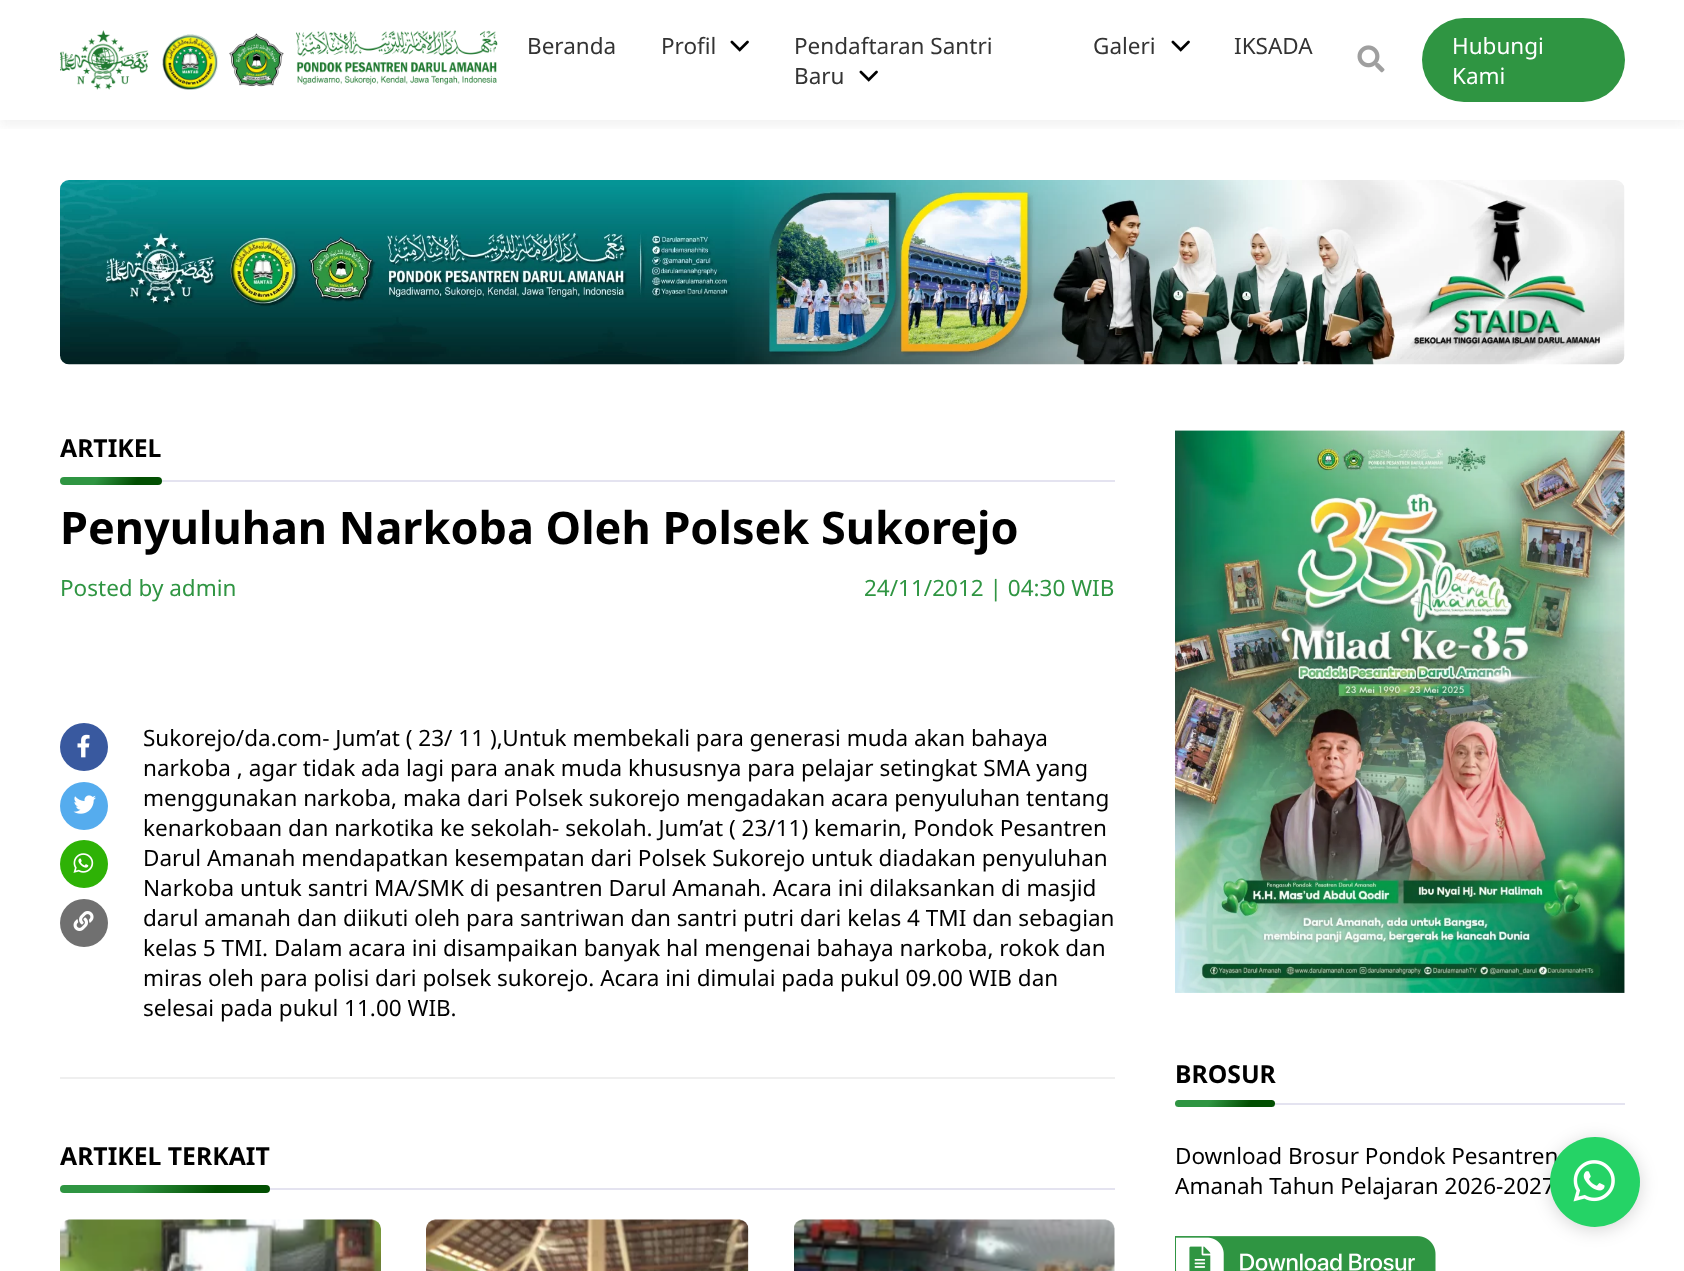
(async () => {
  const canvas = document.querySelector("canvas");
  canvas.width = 1684;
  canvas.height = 1271;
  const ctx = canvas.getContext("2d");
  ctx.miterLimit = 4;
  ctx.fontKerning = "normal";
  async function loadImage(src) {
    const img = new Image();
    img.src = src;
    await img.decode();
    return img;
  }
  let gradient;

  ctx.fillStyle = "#ffffff";
  ctx.fillRect(0, 0, 1684, 1271);
  ctx.save();
  ctx.beginPath();
  ctx.rect(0, 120, 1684, 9);
  ctx.clip();
  ctx.fillStyle = "rgba(66, 66, 66, 0.07)";
  ctx.filter = "blur(6px)";
  ctx.beginPath();
  ctx.rect(0, 6, 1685, 120);
  ctx.fill();
  ctx.filter = "none";
  ctx.restore();
  ctx.drawImage(await loadImage("img/1.png"), 60, 30, 438, 60);
  ctx.drawImage(await loadImage("img/2.png"), 730, 40, 19, 12);
  ctx.drawImage(await loadImage("img/2.png"), 859, 70, 19, 12);
  ctx.drawImage(await loadImage("img/2.png"), 1171, 40, 19, 12);
  ctx.drawImage(await loadImage("img/3.png"), 1357, 45, 28, 28);
  ctx.fillStyle = "#2f9542";
  ctx.beginPath();
  ctx.roundRect(1422, 18, 203, 84, 42);
  ctx.fill();
  ctx.drawImage(await loadImage("img/4.png"), 60, 180, 1565, 185);
  ctx.fillStyle = "#e4e3f0";
  ctx.fillRect(60, 480, 1055, 2);
  gradient = ctx.createLinearGradient(71, 458, 151, 504);
  gradient.addColorStop(0.35, "#2f9542");
  gradient.addColorStop(0.74, "#024f02");
  ctx.fillStyle = gradient;
  ctx.beginPath();
  ctx.roundRect(60, 477, 102, 8, 4);
  ctx.fill();
  ctx.fillStyle = "#efefef";
  ctx.fillRect(60, 1077, 1055, 2);
  ctx.fillStyle = "#39599f";
  ctx.beginPath();
  ctx.arc(84, 747, 24, 0, Math.PI * 2);
  ctx.fill();
  ctx.drawImage(await loadImage("img/5.png"), 77, 734, 13, 24);
  ctx.fillStyle = "#55acee";
  ctx.beginPath();
  ctx.arc(84, 806, 24, 0, Math.PI * 2);
  ctx.fill();
  ctx.drawImage(await loadImage("img/6.png"), 73, 795, 23, 19);
  ctx.fillStyle = "#2eb206";
  ctx.beginPath();
  ctx.arc(84, 864, 24, 0, Math.PI * 2);
  ctx.fill();
  ctx.drawImage(await loadImage("img/7.png"), 73, 853, 21, 20);
  ctx.fillStyle = "#707070";
  ctx.beginPath();
  ctx.arc(84, 923, 24, 0, Math.PI * 2);
  ctx.fill();
  ctx.drawImage(await loadImage("img/8.png"), 73, 911, 21, 20);
  ctx.fillStyle = "#e4e3f0";
  ctx.fillRect(60, 1188, 1055, 2);
  gradient = ctx.createLinearGradient(85, 1142, 245, 1235);
  gradient.addColorStop(0.35, "#2f9542");
  gradient.addColorStop(0.74, "#024f02");
  ctx.fillStyle = gradient;
  ctx.beginPath();
  ctx.roundRect(60, 1185, 210, 8, 4);
  ctx.fill();
  ctx.drawImage(await loadImage("img/9.png"), 60, 1219, 321, 52);
  ctx.drawImage(await loadImage("img/10.png"), 426, 1219, 323, 52);
  ctx.drawImage(await loadImage("img/11.png"), 794, 1219, 321, 52);
  ctx.drawImage(await loadImage("img/12.png"), 1175, 430, 450, 563);
  ctx.fillStyle = "#e4e3f0";
  ctx.fillRect(1175, 1103, 450, 2);
  gradient = ctx.createLinearGradient(1185, 1081, 1264, 1126);
  gradient.addColorStop(0.35, "#2f9542");
  gradient.addColorStop(0.74, "#024f02");
  ctx.fillStyle = gradient;
  ctx.beginPath();
  ctx.roundRect(1175, 1100, 100, 7, 3.5);
  ctx.fill();
  ctx.drawImage(await loadImage("img/13.png"), 1175, 1236, 261, 35);
  ctx.fillStyle = "rgba(0, 0, 0, 0.16)";
  ctx.filter = "blur(9px)";
  ctx.beginPath();
  ctx.roundRect(1550, 1140, 90, 90, 45);
  ctx.fill();
  ctx.filter = "none";
  ctx.font = "22.5px Noto Sans";
  ctx.fillStyle = "#333333";
  for (const [text, x, y] of [
    ["Beranda", 527, 54],
    ["Profil", 661, 54],
    ["Pendaftaran Santri", 794, 54],
    ["Baru", 794, 84],
    ["Galeri", 1093, 54],
    ["IKSADA", 1234, 54],
  ]) {
    ctx.fillText(text, x, y);
  }
  ctx.fillStyle = "#ffffff";
  ctx.fillText("Hubungi", 1452, 54);
  ctx.fillText("Kami", 1452, 84);
  ctx.font = "bold 24.75px Noto Sans";
  ctx.fillStyle = "#000000";
  ctx.fillText("ARTIKEL", 60, 457);
  ctx.font = "bold 45px Noto Sans";
  ctx.fillText("Penyuluhan Narkoba Oleh Polsek Sukorejo", 60, 544);
  ctx.font = "22.5px Noto Sans";
  ctx.fillStyle = "#2f9542";
  ctx.fillText("Posted by admin", 60, 596);
  ctx.fillText("24/11/2012 | 04:30 WIB", 864, 596);
  ctx.fillStyle = "#000000";
  for (const [text, x, y] of [
    ["Sukorejo/da.com- Jum’at ( 23/ 11 ),Untuk membekali para generasi muda akan bahaya", 143, 746],
    ["narkoba , agar tidak ada lagi para anak muda khususnya para pelajar setingkat SMA yang", 143, 776],
    ["menggunakan narkoba, maka dari Polsek sukorejo mengadakan acara penyuluhan tentang", 143, 806],
    ["kenarkobaan dan narkotika ke sekolah- sekolah. Jum’at ( 23/11) kemarin, Pondok Pesantren", 143, 836],
    ["Darul Amanah mendapatkan kesempatan dari Polsek Sukorejo untuk diadakan penyuluhan", 143, 866],
    ["Narkoba untuk santri MA/SMK di pesantren Darul Amanah. Acara ini dilaksankan di masjid", 143, 896],
    ["darul amanah dan diikuti oleh para santriwan dan santri putri dari kelas 4 TMI dan sebagian", 143, 926],
    ["kelas 5 TMI. Dalam acara ini disampaikan banyak hal mengenai bahaya narkoba, rokok dan", 143, 956],
    ["miras oleh para polisi dari polsek sukorejo. Acara ini dimulai pada pukul 09.00 WIB dan", 143, 986],
    ["selesai pada pukul 11.00 WIB.", 143, 1016],
  ]) {
    ctx.fillText(text, x, y);
  }
  ctx.font = "bold 24.75px Noto Sans";
  ctx.fillText("ARTIKEL TERKAIT", 60, 1165);
  ctx.fillText("BROSUR", 1175, 1083);
  ctx.font = "22.5px Noto Sans";
  ctx.fillText("Download Brosur Pondok Pesantren", 1175, 1164);
  ctx.fillText("Amanah Tahun Pelajaran 2026-2027", 1175, 1194);
  ctx.fillStyle = "#25d366";
  ctx.beginPath();
  ctx.arc(1595, 1182, 45, 0, Math.PI * 2);
  ctx.fill();
  ctx.drawImage(await loadImage("img/14.png"), 1573, 1160, 42, 42);
})();
